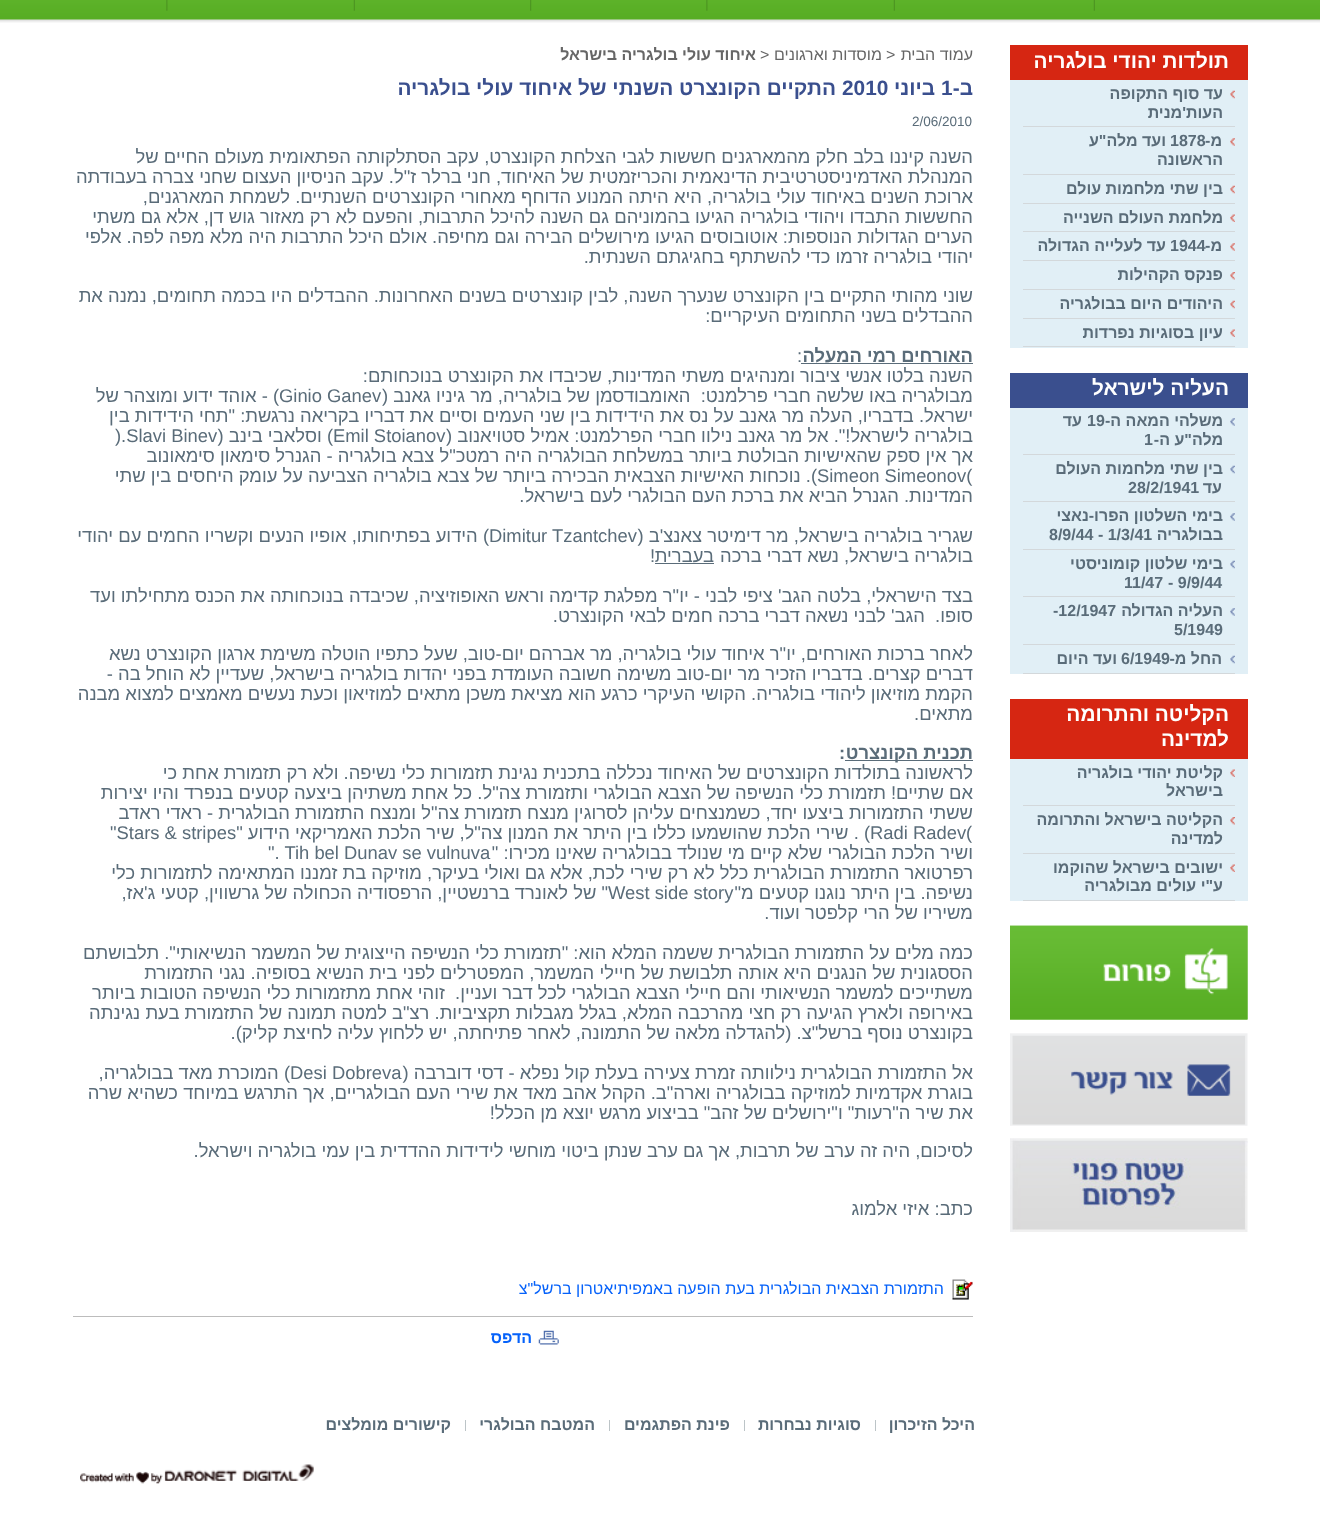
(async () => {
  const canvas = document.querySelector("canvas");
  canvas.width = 1320;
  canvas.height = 1514;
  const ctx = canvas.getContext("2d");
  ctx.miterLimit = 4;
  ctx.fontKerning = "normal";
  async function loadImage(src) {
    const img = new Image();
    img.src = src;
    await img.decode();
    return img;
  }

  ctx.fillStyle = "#ffffff";
  ctx.fillRect(0, 0, 1320, 1514);
  ctx.drawImage(await loadImage("img/1.png"), 0, 0, 1320, 23);
  ctx.drawImage(await loadImage("img/2.png"), 1093, 0, 2, 11);
  ctx.drawImage(await loadImage("img/2.png"), 893, 0, 2, 11);
  ctx.drawImage(await loadImage("img/3.png"), 706, 0, 2, 11);
  ctx.drawImage(await loadImage("img/4.png"), 530, 0, 2, 11);
  ctx.drawImage(await loadImage("img/2.png"), 353, 0, 2, 11);
  ctx.drawImage(await loadImage("img/3.png"), 166, 0, 2, 11);
  for (const [x, y, w, h, color] of [
    [1010, 45, 238, 35, "#d62612"],
    [1010, 80, 238, 268, "#e1eff6"],
    [1023, 126, 212, 1, "#d3d8db"],
  ]) {
    ctx.fillStyle = color;
    ctx.fillRect(x, y, w, h);
  }
  ctx.drawImage(await loadImage("img/5.png"), 1230, 90, 5, 9);
  ctx.fillRect(1023, 174, 212, 1);
  ctx.drawImage(await loadImage("img/6.png"), 1230, 138, 5, 8);
  ctx.fillRect(1023, 203, 212, 1);
  ctx.drawImage(await loadImage("img/5.png"), 1230, 185, 5, 9);
  ctx.fillRect(1023, 231, 212, 1);
  ctx.drawImage(await loadImage("img/7.png"), 1230, 214, 5, 8);
  ctx.fillRect(1023, 260, 212, 1);
  ctx.drawImage(await loadImage("img/6.png"), 1230, 243, 5, 8);
  ctx.fillRect(1023, 289, 212, 1);
  ctx.drawImage(await loadImage("img/8.png"), 1230, 272, 5, 8);
  ctx.fillRect(1023, 318, 212, 1);
  ctx.drawImage(await loadImage("img/5.png"), 1230, 300, 5, 9);
  ctx.fillRect(1023, 346, 212, 1);
  ctx.drawImage(await loadImage("img/7.png"), 1230, 329, 5, 8);
  for (const [x, y, w, h, color] of [
    [1010, 373, 238, 35, "#3a4f8e"],
    [1010, 408, 238, 266, "#e1eff6"],
    [1023, 454, 212, 1, "#d3d8db"],
  ]) {
    ctx.fillStyle = color;
    ctx.fillRect(x, y, w, h);
  }
  ctx.drawImage(await loadImage("img/9.png"), 1230, 418, 5, 8);
  ctx.fillRect(1023, 501, 212, 1);
  ctx.drawImage(await loadImage("img/10.png"), 1230, 465, 5, 9);
  ctx.fillRect(1023, 549, 212, 1);
  ctx.drawImage(await loadImage("img/9.png"), 1230, 513, 5, 8);
  ctx.fillRect(1023, 596, 212, 1);
  ctx.drawImage(await loadImage("img/10.png"), 1230, 560, 5, 9);
  ctx.fillRect(1023, 644, 212, 1);
  ctx.drawImage(await loadImage("img/9.png"), 1230, 608, 5, 8);
  ctx.fillRect(1023, 673, 212, 1);
  ctx.drawImage(await loadImage("img/10.png"), 1230, 655, 5, 9);
  for (const [x, y, w, h, color] of [
    [1010, 699, 238, 60, "#d62612"],
    [1010, 759, 238, 142, "#e1eff6"],
    [1023, 805, 212, 1, "#d3d8db"],
  ]) {
    ctx.fillStyle = color;
    ctx.fillRect(x, y, w, h);
  }
  ctx.drawImage(await loadImage("img/7.png"), 1230, 769, 5, 8);
  ctx.fillRect(1023, 853, 212, 1);
  ctx.drawImage(await loadImage("img/8.png"), 1230, 817, 5, 8);
  ctx.fillRect(1023, 900, 212, 1);
  ctx.drawImage(await loadImage("img/7.png"), 1230, 864, 5, 8);
  ctx.drawImage(await loadImage("img/11.png"), 1010, 925, 238, 95);
  ctx.drawImage(await loadImage("img/12.png"), 1010, 925, 238, 95);
  ctx.drawImage(await loadImage("img/13.png"), 1010, 1033, 238, 93);
  ctx.drawImage(await loadImage("img/14.png"), 1010, 1138, 238, 94);
  ctx.drawImage(await loadImage("img/15.png"), 1247, 1141, 1, 2);
  for (const [x, y, w, h, color] of [
    [801, 363, 172, 1, "#5a6c79"],
    [655, 563, 59, 1, "#5a6c79"],
    [845, 760, 128, 1, "#5a6c79"],
  ]) {
    ctx.fillStyle = color;
    ctx.fillRect(x, y, w, h);
  }
  ctx.drawImage(await loadImage("img/16.png"), 952, 1279, 21, 21);
  ctx.fillStyle = "#bcbcbc";
  ctx.fillRect(73, 1316, 900, 1);
  ctx.drawImage(await loadImage("img/17.png"), 538, 1330, 21, 15);
  for (const [x, y, w, h, color] of [
    [875, 1420, 1, 11, "#bcc4c7"],
    [744, 1420, 1, 11, "#bcc4c7"],
    [609, 1420, 1, 11, "#bcc4c7"],
    [465, 1420, 1, 11, "#bcc4c7"],
  ]) {
    ctx.fillStyle = color;
    ctx.fillRect(x, y, w, h);
  }
  ctx.drawImage(await loadImage("img/18.png"), 80, 1464, 234, 20);
  ctx.direction = "rtl";
  ctx.font = "bold 20.8px Liberation Sans";
  ctx.fillStyle = "#ffffff";
  ctx.fillText("תולדות יהודי בולגריה", 1229, 68);
  ctx.font = "bold 16px Liberation Sans";
  ctx.fillStyle = "#5a6c79";
  for (const [text, x, y] of [
    ["עד סוף התקופה", 1223, 99],
    ["העות'מנית", 1223, 118],
    ["מ-", 1222, 146],
  ]) {
    ctx.fillText(text, x, y);
  }
  ctx.direction = "ltr";
  ctx.fillText("1878", 1170, 146);
  ctx.direction = "rtl";
  for (const [text, x, y] of [
    ["ועד מלה\"ע", 1166, 146],
    ["הראשונה", 1223, 165],
    ["בין שתי מלחמות עולם", 1223, 194],
    ["מלחמת העולם השנייה", 1223, 223],
    ["מ-", 1222, 251],
  ]) {
    ctx.fillText(text, x, y);
  }
  ctx.direction = "ltr";
  ctx.fillText("1944", 1170, 251);
  ctx.direction = "rtl";
  for (const [text, x, y] of [
    ["עד לעלייה הגדולה", 1166, 251],
    ["פנקס הקהילות", 1223, 280],
    ["היהודים היום בבולגריה", 1223, 309],
    ["עיון בסוגיות נפרדות", 1223, 338],
  ]) {
    ctx.fillText(text, x, y);
  }
  ctx.font = "bold 20.8px Liberation Sans";
  ctx.fillStyle = "#ffffff";
  ctx.fillText("העליה לישראל", 1229, 395);
  ctx.font = "bold 16px Liberation Sans";
  ctx.fillStyle = "#5a6c79";
  ctx.fillText("משלהי המאה ה-", 1223, 426);
  ctx.direction = "ltr";
  ctx.fillText("19", 1087, 426);
  ctx.direction = "rtl";
  ctx.fillText("עד", 1082, 426);
  ctx.fillText("מלה\"ע ה-", 1223, 445);
  ctx.direction = "ltr";
  ctx.fillText("1", 1144, 445);
  ctx.direction = "rtl";
  ctx.fillText("בין שתי מלחמות העולם", 1223, 474);
  ctx.fillText("עד", 1222, 493);
  ctx.direction = "ltr";
  ctx.fillText("28/2/1941", 1128, 493);
  ctx.direction = "rtl";
  ctx.fillText("בימי השלטון הפרו-נאצי", 1223, 521);
  ctx.fillText("בבולגריה", 1223, 540);
  ctx.direction = "ltr";
  ctx.fillText("8/9/44 - 1/3/41", 1049, 540);
  ctx.direction = "rtl";
  ctx.fillText("בימי שלטון קומוניסטי", 1223, 569);
  ctx.direction = "ltr";
  ctx.fillText("- 9/9/44", 1168, 588);
  ctx.fillText("11/47", 1124, 588);
  ctx.direction = "rtl";
  ctx.fillText("העליה הגדולה", 1223, 616);
  ctx.direction = "ltr";
  ctx.fillText("-12/1947", 1053, 616);
  ctx.fillText("5/1949", 1174, 635);
  ctx.direction = "rtl";
  ctx.fillText("החל מ-", 1222, 664);
  ctx.direction = "ltr";
  ctx.fillText("6/1949", 1121, 664);
  ctx.direction = "rtl";
  ctx.fillText("ועד היום", 1117, 664);
  ctx.font = "bold 20.8px Liberation Sans";
  ctx.fillStyle = "#ffffff";
  ctx.fillText("הקליטה והתרומה", 1229, 721);
  ctx.fillText("למדינה", 1229, 746);
  ctx.font = "bold 16px Liberation Sans";
  ctx.fillStyle = "#5a6c79";
  for (const [text, x, y] of [
    ["קליטת יהודי בולגריה", 1223, 778],
    ["בישראל", 1223, 796],
    ["הקליטה בישראל והתרומה", 1223, 825],
    ["למדינה", 1223, 844],
    ["ישובים בישראל שהוקמו", 1223, 873],
    ["ע\"י עולים מבולגריה", 1223, 891],
  ]) {
    ctx.fillText(text, x, y);
  }
  ctx.font = "16px Liberation Sans";
  ctx.fillStyle = "#666666";
  ctx.fillText("עמוד הבית", 973, 60);
  ctx.direction = "ltr";
  ctx.fillText(">", 886, 60);
  ctx.direction = "rtl";
  ctx.fillText("מוסדות וארגונים", 882, 60);
  ctx.direction = "ltr";
  ctx.fillText(">", 760, 60);
  ctx.direction = "rtl";
  ctx.font = "bold 16px Liberation Sans";
  ctx.fillText("איחוד עולי בולגריה בישראל", 756, 60);
  ctx.font = "bold 20.8px Liberation Sans";
  ctx.fillStyle = "#3a4f8e";
  ctx.fillText("ב-", 973, 95);
  ctx.direction = "ltr";
  ctx.fillText("1", 941, 95);
  ctx.direction = "rtl";
  ctx.fillText("ביוני", 935, 95);
  ctx.direction = "ltr";
  ctx.fillText("2010", 842, 95);
  ctx.direction = "rtl";
  ctx.fillText("התקיים הקונצרט השנתי של איחוד עולי בולגריה", 836, 95);
  ctx.direction = "ltr";
  ctx.font = "13.5px Liberation Sans";
  ctx.fillStyle = "#5a6c79";
  ctx.fillText("2/06/2010", 912, 126);
  ctx.direction = "rtl";
  ctx.font = "18.4px Liberation Sans";
  for (const [text, x, y] of [
    ["השנה קיננו בלב חלק מהמארגנים חששות לגבי הצלחת הקונצרט, עקב הסתלקותה הפתאומית מעולם החיים של", 973, 163],
    ["המנהלת האדמיניסטרטיבית הדינאמית והכריזמטית של האיחוד, חני ברלר ז\"ל. עקב הניסיון העצום שחני צברה בעבודתה", 973, 183],
    ["ארוכת השנים באיחוד עולי בולגריה, היא היתה המנוע הדוחף מאחורי הקונצרטים השנתיים. לשמחת המארגנים,", 973, 203],
    ["החששות התבדו ויהודי בולגריה הגיעו בהמוניהם גם השנה להיכל התרבות, והפעם לא רק מאזור גוש דן, אלא גם משתי", 973, 223],
    ["הערים הגדולות הנוספות: אוטובוסים הגיעו מירושלים הבירה וגם מחיפה. אולם היכל התרבות היה מלא מפה לפה. אלפי", 973, 243],
    ["יהודי בולגריה זרמו כדי להשתתף בחגיגתם השנתית.", 973, 263],
    ["שוני מהותי התקיים בין הקונצרט שנערך השנה, לבין קונצרטים בשנים האחרונות. ההבדלים היו בכמה תחומים, נמנה את", 973, 302],
    ["ההבדלים בשני התחומים העיקריים:", 973, 322],
  ]) {
    ctx.fillText(text, x, y);
  }
  ctx.font = "bold 18.4px Liberation Sans";
  ctx.fillText("האורחים רמי המעלה", 973, 362);
  ctx.direction = "ltr";
  ctx.font = "18.4px Liberation Sans";
  ctx.fillText(":", 797, 362);
  ctx.direction = "rtl";
  ctx.fillText("השנה בלטו אנשי ציבור ומנהיגים משתי המדינות, שכיבדו את הקונצרט בנוכחותם:", 973, 382);
  ctx.direction = "ltr";
  ctx.fillText("Ginio Ganev", 279, 402);
  ctx.direction = "rtl";
  for (const [text, x, y] of [
    ["מבולגריה באו שלשה חברי פרלמנט:  האומבודסמן של בולגריה, מר גיניו גאנב (", 973, 402],
    [") - אוהד ידוע ומוצהר של", 279, 402],
    ["ישראל. בדבריו, העלה מר גאנב על נס את הידידות בין שני העמים וסיים את דבריו בקריאה נרגשת: \"תחי הידידות בין", 973, 422],
  ]) {
    ctx.fillText(text, x, y);
  }
  ctx.direction = "ltr";
  ctx.fillText("Emil Stoianov", 333, 442);
  ctx.direction = "rtl";
  ctx.fillText("בולגריה לישראל!\". אל מר גאנב נילוו חברי הפרלמנט: אמיל סטויאנוב (", 973, 442);
  ctx.direction = "ltr";
  ctx.fillText(").Slavi Binev", 115, 442);
  ctx.direction = "rtl";
  ctx.fillText(") וסלאבי בינב (", 333, 442);
  ctx.fillText("אך אין ספק שהאישיות הבולטת ביותר במשלחת הבולגריה היה רמטכ\"ל צבא בולגריה - הגנרל סימאון סימאונוב", 973, 462);
  ctx.direction = "ltr";
  ctx.fillText("Simeon Simeonov(", 817, 482);
  ctx.direction = "rtl";
  for (const [text, x, y] of [
    ["). נוכחות האישיות הצבאית הבכירה ביותר של צבא בולגריה הצביעה על עומק היחסים בין שתי", 817, 482],
    ["המדינות. הגנרל הביא את ברכת העם הבולגרי לעם בישראל.", 973, 502],
    ["שגריר בולגריה בישראל, מר דימיטר צאנצ'ב (", 973, 542],
  ]) {
    ctx.fillText(text, x, y);
  }
  ctx.direction = "ltr";
  ctx.fillText("Dimitur Tzantchev", 489, 542);
  ctx.direction = "rtl";
  for (const [text, x, y] of [
    [") הידוע בפתיחותו, אופיו הנעים וקשריו החמים עם יהודי", 489, 542],
    ["בולגריה בישראל, נשא דברי ברכה", 973, 562],
    ["בעברית", 714, 562],
  ]) {
    ctx.fillText(text, x, y);
  }
  ctx.direction = "ltr";
  ctx.fillText("!", 650, 562);
  ctx.direction = "rtl";
  for (const [text, x, y] of [
    ["בצד הישראלי, בלטה הגב' ציפי לבני - יו\"ר מפלגת קדימה וראש האופוזיציה, שכיבדה בנוכחותה את הכנס מתחילתו ועד", 973, 602],
    ["סופו.  הגב' לבני נשאה דברי ברכה חמים לבאי הקונצרט.", 973, 622],
    ["לאחר ברכות האורחים, יו\"ר איחוד עולי בולגריה, מר אברהם יום-טוב, שעל כתפיו הוטלה משימת ארגון הקונצרט נשא", 973, 660],
    ["דברים קצרים. בדבריו הזכיר מר יום-טוב משימה חשובה העומדת בפני יהדות בולגריה בישראל, שעדיין לא הוחל בה -", 973, 680],
    ["הקמת מוזיאון ליהודי בולגריה. הקושי העיקרי כרגע הוא מציאת משכן מתאים למוזיאון וכעת נעשים מאמצים למצוא מבנה", 973, 700],
    ["מתאים.", 973, 720],
  ]) {
    ctx.fillText(text, x, y);
  }
  ctx.font = "bold 18.4px Liberation Sans";
  ctx.fillText("תכנית הקונצרט", 973, 759);
  ctx.direction = "ltr";
  ctx.fillText(":", 839, 759);
  ctx.direction = "rtl";
  ctx.font = "18.4px Liberation Sans";
  for (const [text, x, y] of [
    ["לראשונה בתולדות הקונצרטים של האיחוד נכללה בתכנית נגינת תזמורות כלי נשיפה. ולא רק תזמורת אחת כי", 973, 779],
    ["אם שתיים! תזמורת כלי הנשיפה של הצבא הבולגרי ותזמורת צה\"ל. כל אחת משתיהן ביצעה קטעים בנפרד והיו יצירות", 973, 799],
    ["ששתי התזמורות ביצעו יחד, כשמנצחים עליהן לסרוגין מנצח תזמורת צה\"ל ומנצח התזמורת הבולגרית - ראדי ראדב", 973, 819],
  ]) {
    ctx.fillText(text, x, y);
  }
  ctx.direction = "ltr";
  ctx.fillText("Radi Radev(", 870, 839);
  ctx.direction = "rtl";
  ctx.fillText(") . שירי הלכת שהושמעו כללו בין היתר את המנון צה\"ל, שיר הלכת האמריקאי הידוע \"", 870, 839);
  ctx.direction = "ltr";
  ctx.fillText("\"Stars & stripes", 110, 839);
  ctx.fillText("\". Tih bel Dunav se vulnuva", 268, 859);
  ctx.direction = "rtl";
  for (const [text, x, y] of [
    ["ושיר הלכת הבולגרי שלא קיים מי שנולד בבולגריה שאינו מכירו: \"", 973, 859],
    ["רפרטואר התזמורת הבולגרית כלל לא רק שירי לכת, אלא גם ואולי בעיקר, מוזיקה בת זמננו המתאימה לתזמורות כלי", 973, 879],
    ["נשיפה. בין היתר נוגנו קטעים מ\"", 973, 899],
  ]) {
    ctx.fillText(text, x, y);
  }
  ctx.direction = "ltr";
  ctx.fillText("West side story", 608, 899);
  ctx.direction = "rtl";
  for (const [text, x, y] of [
    ["\" של לאונרד ברנשטיין, הרפסודיה הכחולה של גרשווין, קטעי ג'אז,", 608, 899],
    ["משיריו של הרי קלפטר ועוד.", 973, 919],
    ["כמה מלים על התזמורת הבולגרית ששמה המלא הוא: \"תזמורת כלי הנשיפה הייצוגית של המשמר הנשיאותי\". תלבושתם", 973, 959],
    ["הססגונית של הנגנים היא אותה תלבושת של חיילי המשמר, המפטרלים לפני בית הנשיא בסופיה. נגני התזמורת", 973, 979],
    ["משתייכים למשמר הנשיאותי והם חיילי הצבא הבולגרי לכל דבר ועניין.  זוהי אחת מתזמורות כלי הנשיפה הטובות ביותר", 973, 999],
    ["באירופה ולארץ הגיעה רק חצי מהרכבה המלא, בגלל מגבלות תקציביות. רצ\"ב למטה תמונה של התזמורת בעת נגינתה", 973, 1019],
    ["בקונצרט נוסף ברשל\"צ. (להגדלה מלאה של התמונה, לאחר פתיחתה, יש ללחוץ עליה לחיצת קליק).", 973, 1039],
    ["אל התזמורת הבולגרית נילוותה זמרת צעירה בעלת קול נפלא - דסי דוברבה (", 973, 1079],
  ]) {
    ctx.fillText(text, x, y);
  }
  ctx.direction = "ltr";
  ctx.fillText("Desi Dobreva", 290, 1079);
  ctx.direction = "rtl";
  for (const [text, x, y] of [
    [") המוכרת מאד בבולגריה,", 290, 1079],
    ["בוגרת אקדמיות למוזיקה בבולגריה וארה\"ב. הקהל אהב מאד את שירי העם הבולגריים, אך התרגש במיוחד כשהיא שרה", 973, 1099],
    ["את שיר ה\"רעות\" ו\"ירושלים של זהב\" בביצוע מרגש יוצא מן הכלל!", 973, 1119],
    ["לסיכום, היה זה ערב של תרבות, אך גם ערב שנתן ביטוי מוחשי לידידות ההדדית בין עמי בולגריה וישראל.", 973, 1157],
    ["כתב: איזי אלמוג", 973, 1215],
  ]) {
    ctx.fillText(text, x, y);
  }
  ctx.font = "16px Liberation Sans";
  ctx.fillStyle = "#0662fa";
  ctx.fillText("התזמורת הצבאית הבולגרית בעת הופעה באמפיתיאטרון ברשל\"צ", 944, 1294);
  ctx.font = "bold 16px Liberation Sans";
  ctx.fillText("הדפס", 532, 1343);
  ctx.fillStyle = "#5a6c79";
  for (const [text, x, y] of [
    ["היכל הזיכרון", 975, 1430],
    ["סוגיות נבחרות", 861, 1430],
    ["פינת הפתגמים", 730, 1430],
    ["המטבח הבולגרי", 595, 1430],
    ["קישורים מומלצים", 451, 1430],
  ]) {
    ctx.fillText(text, x, y);
  }
})();
